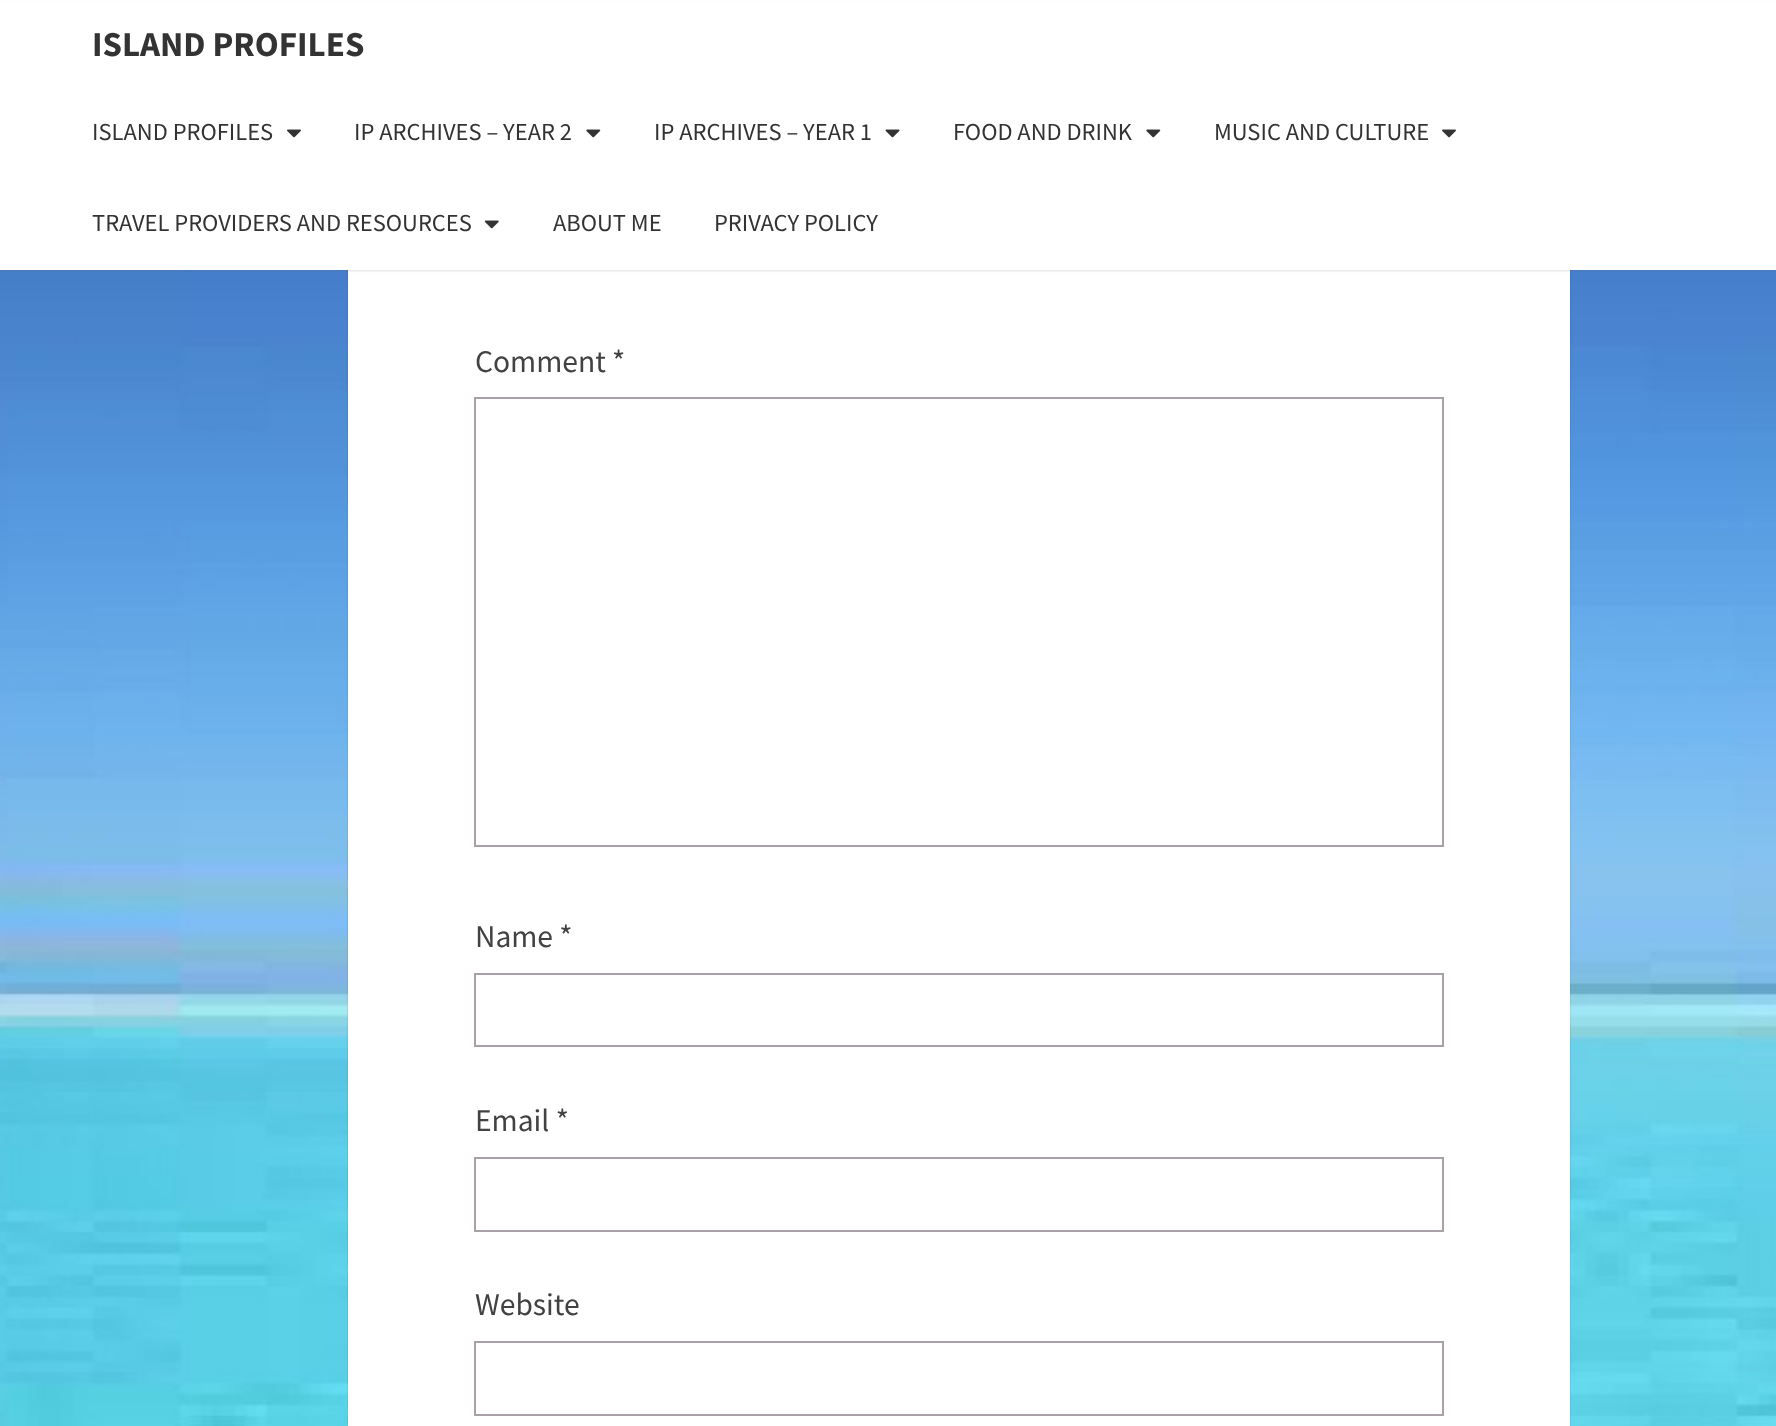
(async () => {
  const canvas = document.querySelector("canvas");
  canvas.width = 1776;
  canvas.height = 1426;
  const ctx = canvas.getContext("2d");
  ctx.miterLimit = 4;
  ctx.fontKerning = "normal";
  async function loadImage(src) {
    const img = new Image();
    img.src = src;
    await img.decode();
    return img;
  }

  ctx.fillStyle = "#ffffff";
  ctx.fillRect(0, 0, 1776, 1426);
  ctx.drawImage(await loadImage("img/1.png"), 0, 270, 1776, 1156);
  ctx.fillStyle = "rgba(0, 0, 0, 0.15)";
  ctx.filter = "blur(1px)";
  ctx.beginPath();
  ctx.rect(348, 75, 1222, 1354);
  ctx.fill();
  ctx.filter = "none";
  ctx.fillStyle = "#ffffff";
  ctx.fillRect(348, 270, 1222, 1156);
  ctx.fillStyle = "rgba(100, 100, 100, 0.2)";
  ctx.filter = "blur(1px)";
  ctx.beginPath();
  ctx.rect(0, 2, 1776, 269);
  ctx.fill();
  ctx.filter = "none";
  ctx.fillStyle = "#ffffff";
  ctx.fillRect(0, 1, 1776, 269);
  ctx.drawImage(await loadImage("img/2.png"), 287, 129, 14, 9);
  ctx.drawImage(await loadImage("img/3.png"), 586, 129, 15, 9);
  ctx.drawImage(await loadImage("img/4.png"), 885, 129, 15, 9);
  ctx.drawImage(await loadImage("img/3.png"), 1146, 129, 15, 9);
  ctx.drawImage(await loadImage("img/2.png"), 1442, 129, 14, 9);
  ctx.drawImage(await loadImage("img/5.png"), 484, 220, 15, 9);
  ctx.strokeStyle = "#aaa1a8";
  ctx.lineWidth = 2;
  ctx.strokeRect(475, 398, 968, 448);
  ctx.strokeRect(475, 974, 968, 72);
  ctx.strokeRect(475, 1158, 968, 73);
  ctx.strokeRect(475, 1342, 968, 73);
  ctx.font = "bold 35px Source Sans Pro";
  ctx.fillStyle = "#333333";
  ctx.fillText("ISLAND PROFILES", 92, 56);
  ctx.font = "24.5px Source Sans Pro";
  for (const [text, x, y] of [
    ["ISLAND PROFILES", 92, 140],
    ["IP ARCHIVES – YEAR 2", 354, 140],
    ["IP ARCHIVES – YEAR 1", 654, 140],
    ["FOOD AND DRINK", 953, 140],
    ["MUSIC AND CULTURE", 1214, 140],
    ["TRAVEL PROVIDERS AND RESOURCES", 92, 231],
    ["ABOUT ME", 553, 231],
    ["PRIVACY POLICY", 714, 231],
  ]) {
    ctx.fillText(text, x, y);
  }
  ctx.font = "31.5px Source Sans Pro";
  ctx.fillStyle = "#424242";
  for (const [text, x, y] of [
    ["Comment *", 475, 372],
    ["Name *", 475, 947],
    ["Email *", 475, 1131],
    ["Website", 475, 1315],
  ]) {
    ctx.fillText(text, x, y);
  }
})();
